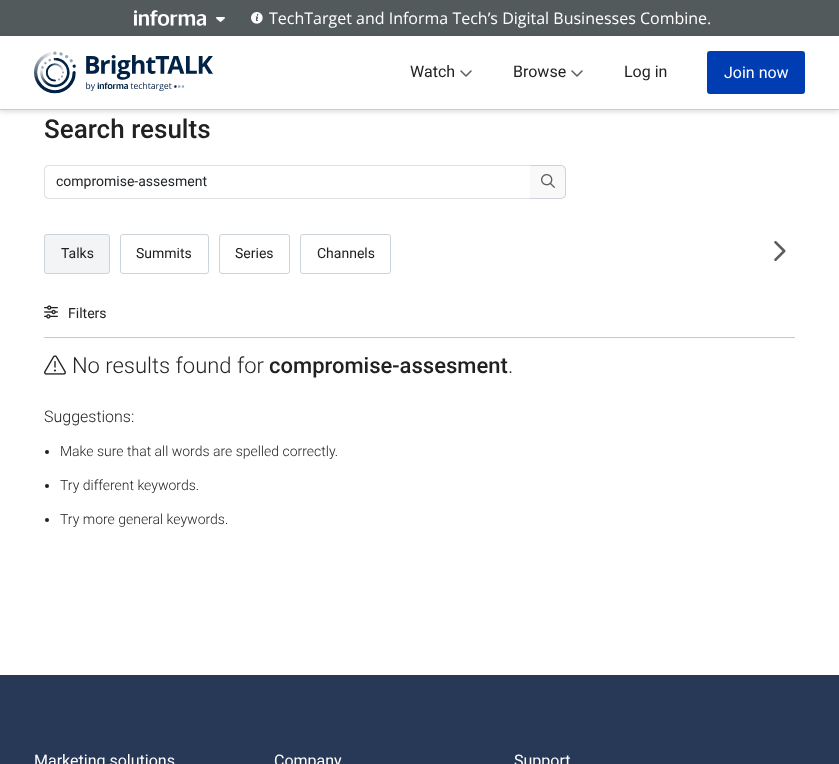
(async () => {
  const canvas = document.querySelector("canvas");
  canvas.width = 839;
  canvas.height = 764;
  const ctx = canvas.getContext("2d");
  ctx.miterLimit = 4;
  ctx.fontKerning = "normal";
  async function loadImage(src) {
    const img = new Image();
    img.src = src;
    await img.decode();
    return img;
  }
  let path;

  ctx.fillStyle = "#ffffff";
  ctx.fillRect(0, 0, 839, 764);
  ctx.fillStyle = "#525a5c";
  ctx.fillRect(0, 0, 839, 36);
  ctx.drawImage(await loadImage("img/1.png"), 134, 10, 72, 16);
  ctx.drawImage(await loadImage("img/2.png"), 216, 17, 9, 5);
  ctx.drawImage(await loadImage("img/3.png"), 251, 12, 12, 12);
  ctx.save();
  path = new Path2D("M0 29H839V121H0ZM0 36H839V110H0Z");
  ctx.clip(path, "evenodd");
  ctx.fillStyle = "rgba(0, 0, 0, 0.13)";
  ctx.filter = "blur(2.5px)";
  ctx.beginPath();
  ctx.rect(0, 38, 839, 74);
  ctx.fill();
  ctx.filter = "none";
  ctx.restore();
  ctx.fillStyle = "#cccccc";
  ctx.fillRect(0, 109, 839, 1);
  ctx.drawImage(await loadImage("img/4.png"), 34, 51, 179, 43);
  ctx.drawImage(await loadImage("img/5.png"), 460, 70, 12, 7);
  ctx.drawImage(await loadImage("img/5.png"), 571, 70, 12, 7);
  ctx.fillStyle = "#003cb2";
  ctx.beginPath();
  ctx.roundRect(707, 51, 98, 43, 3);
  ctx.fill();
  ctx.fillStyle = "#dee2e6";
  path = new Path2D("M49 165H530V199H49C46 199 44 197 44 194V170C44 167 46 165 49 165ZM49 166H530V198H49C47 198 45 196 45 194V170C45 168 47 166 49 166Z");
  ctx.fill(path, "evenodd");
  ctx.fillStyle = "#f9f9fa";
  ctx.beginPath();
  ctx.roundRect(530, 165, 36, 34, [0, 5, 5, 0]);
  ctx.fill();
  ctx.fillStyle = "#ced4da";
  path = new Path2D("M530 165H561C563.5 165 566 167.5 566 170V194C566 196.5 563.5 199 561 199H530ZM530 166H561C563 166 565 168 565 170V194C565 196 563 198 561 198H530Z");
  ctx.fill(path, "evenodd");
  ctx.drawImage(await loadImage("img/6.png"), 541, 174, 14, 14);
  ctx.fillStyle = "#f2f4f6";
  ctx.beginPath();
  ctx.roundRect(44.5, 234.5, 65, 39, 2.5);
  ctx.fill();
  ctx.strokeStyle = "#ccd3da";
  ctx.stroke();
  ctx.beginPath();
  ctx.roundRect(120.5, 234.5, 88, 39, 2.5);
  ctx.stroke();
  ctx.beginPath();
  ctx.roundRect(219.5, 234.5, 70, 39, 2.5);
  ctx.stroke();
  ctx.beginPath();
  ctx.roundRect(300.5, 234.5, 90, 39, 2.5);
  ctx.stroke();
  ctx.drawImage(await loadImage("img/7.png"), 774, 241, 12, 20);
  ctx.drawImage(await loadImage("img/8.png"), 44, 305, 14, 14);
  ctx.fillStyle = "#c8c8c8";
  ctx.fillRect(44, 337, 751, 1);
  ctx.drawImage(await loadImage("img/9.png"), 44, 355, 22, 20);
  ctx.fillStyle = "#212121";
  ctx.beginPath();
  ctx.arc(47, 452, 2, 0, Math.PI * 2);
  ctx.fill();
  ctx.beginPath();
  ctx.arc(47, 486, 2, 0, Math.PI * 2);
  ctx.fill();
  ctx.beginPath();
  ctx.arc(47, 520, 2, 0, Math.PI * 2);
  ctx.fill();
  ctx.fillStyle = "#283857";
  ctx.fillRect(0, 675, 839, 89);
  ctx.font = "16px Open Sans";
  ctx.fillStyle = "#ffffff";
  ctx.fillText("TechTarget and Informa Tech’s Digital Businesses Combine.", 269, 24);
  ctx.font = "16px Roboto";
  ctx.fillStyle = "#212121";
  for (const [text, x, y] of [
    ["Watch", 410, 77],
    ["Browse", 513, 77],
    ["Log in", 624, 77],
  ]) {
    ctx.fillText(text, x, y);
  }
  ctx.fillStyle = "#ffffff";
  ctx.fillText("Join now", 724, 78);
  ctx.font = "500 26px Roboto";
  ctx.fillStyle = "#212121";
  ctx.fillText("Search results", 44, 138);
  ctx.font = "14px Roboto";
  ctx.fillStyle = "#212529";
  ctx.fillText("compromise-assesment", 56, 186);
  ctx.fillStyle = "#212121";
  for (const [text, x, y] of [
    ["Talks", 61, 258],
    ["Summits", 136, 258],
    ["Series", 235, 258],
    ["Channels", 317, 258],
    ["Filters", 68, 318],
  ]) {
    ctx.fillText(text, x, y);
  }
  ctx.font = "300 22px Roboto";
  ctx.fillText("No results found for", 72, 373);
  ctx.font = "500 22px Roboto";
  ctx.fillText("compromise-assesment", 269, 373);
  ctx.font = "300 22px Roboto";
  ctx.fillText(".", 508, 373);
  ctx.font = "300 16px Roboto";
  ctx.fillText("Suggestions:", 44, 422);
  ctx.font = "300 14px Roboto";
  for (const [text, x, y] of [
    ["Make sure that all words are spelled correctly.", 60, 456],
    ["Try different keywords.", 60, 490],
    ["Try more general keywords.", 60, 524],
  ]) {
    ctx.fillText(text, x, y);
  }
  ctx.font = "16px Roboto";
  ctx.fillStyle = "#ffffff";
  for (const [text, x, y] of [
    ["Marketing solutions", 34, 766],
    ["Company", 274, 766],
    ["Support", 514, 766],
  ]) {
    ctx.fillText(text, x, y);
  }
})();
